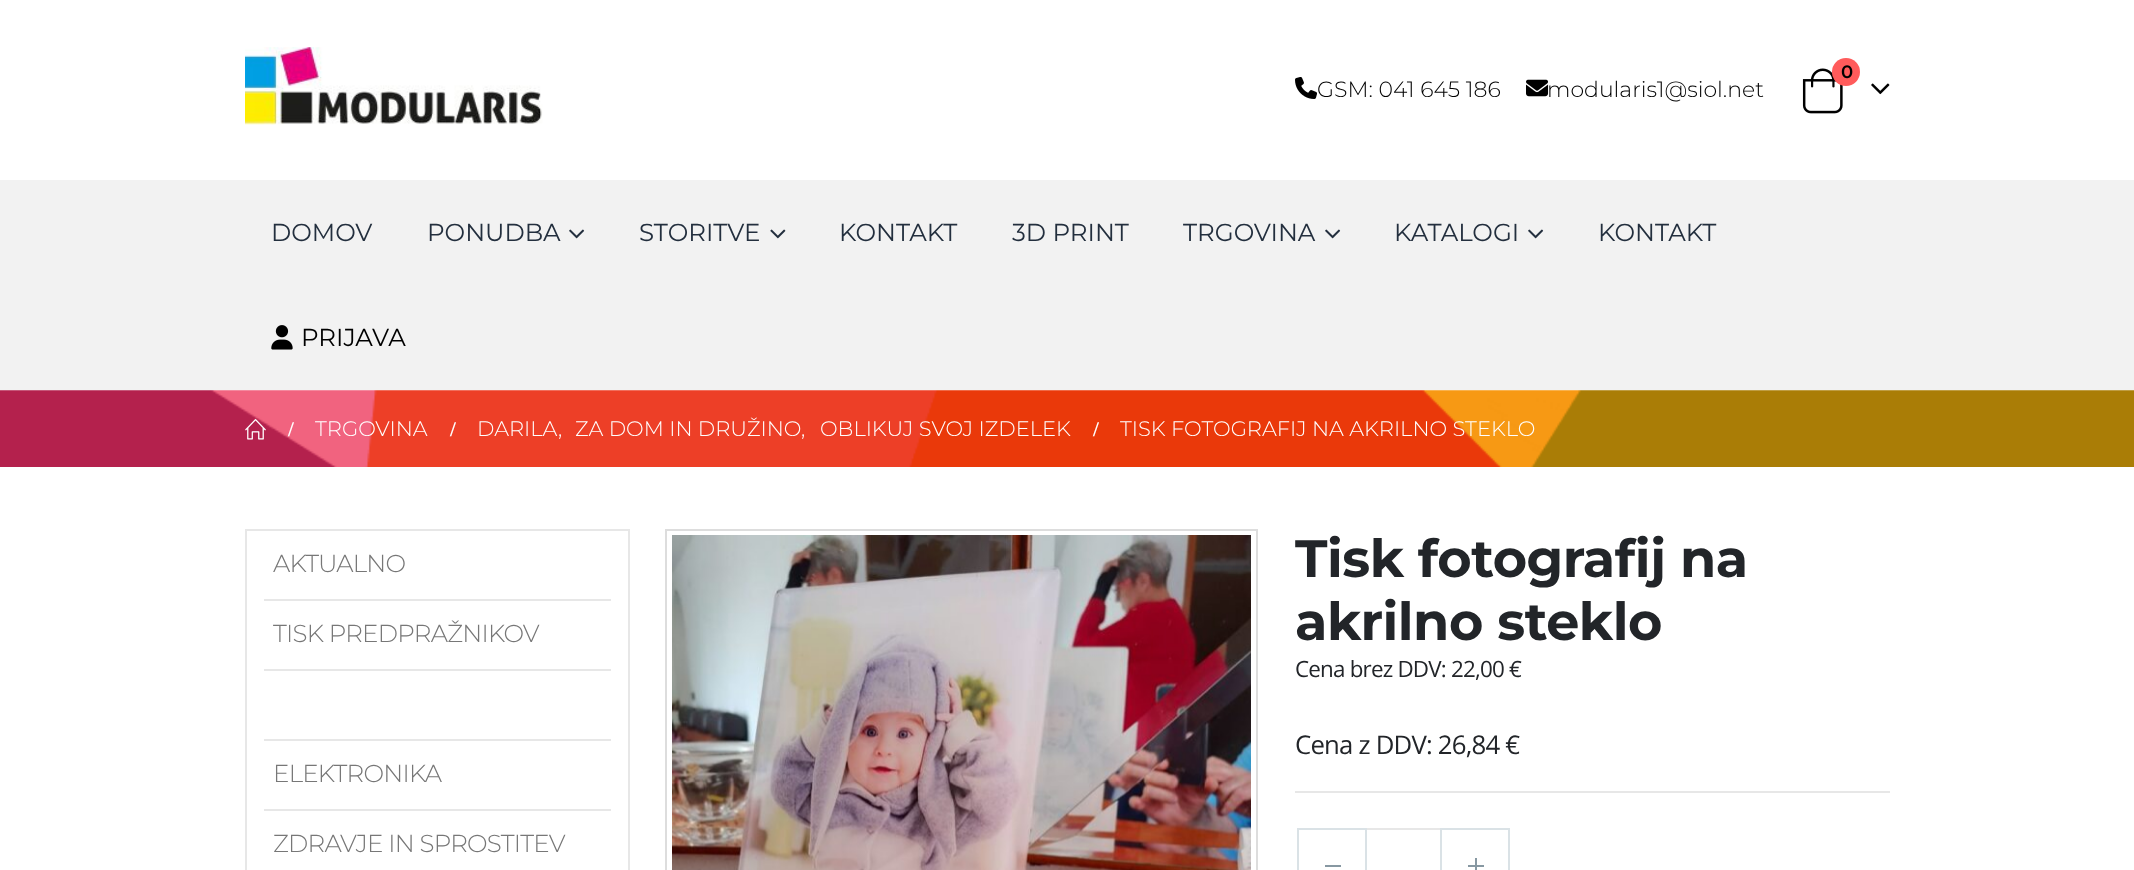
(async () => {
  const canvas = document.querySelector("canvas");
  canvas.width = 2134;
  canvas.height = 870;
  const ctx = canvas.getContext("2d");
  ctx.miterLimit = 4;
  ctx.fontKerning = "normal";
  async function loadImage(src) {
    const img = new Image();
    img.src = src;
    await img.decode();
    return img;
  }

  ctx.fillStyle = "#ffffff";
  ctx.fillRect(0, 0, 2134, 870);
  ctx.fillStyle = "#f2f2f2";
  ctx.fillRect(0, 180, 2134, 210);
  ctx.drawImage(await loadImage("img/1.png"), 245, 47, 298, 78);
  ctx.drawImage(await loadImage("img/2.png"), 1802, 68, 41, 46);
  ctx.fillStyle = "#ff5b5b";
  ctx.beginPath();
  ctx.arc(1846, 72, 14, 0, Math.PI * 2);
  ctx.fill();
  ctx.drawImage(await loadImage("img/3.png"), 1871, 83, 19, 12);
  ctx.drawImage(await loadImage("img/4.png"), 1295, 77, 22, 22);
  ctx.drawImage(await loadImage("img/5.png"), 1526, 79, 23, 18);
  ctx.drawImage(await loadImage("img/6.png"), 569, 229, 16, 10);
  ctx.drawImage(await loadImage("img/7.png"), 770, 229, 16, 10);
  ctx.drawImage(await loadImage("img/6.png"), 1325, 229, 16, 10);
  ctx.drawImage(await loadImage("img/6.png"), 1528, 229, 16, 10);
  ctx.drawImage(await loadImage("img/8.png"), 271, 325, 22, 25);
  ctx.drawImage(await loadImage("img/9.png"), 0, 390, 2134, 77);
  ctx.drawImage(await loadImage("img/10.png"), 245, 419, 21, 21);
  ctx.strokeStyle = "#e7e7e7";
  ctx.lineWidth = 2;
  ctx.strokeRect(246, 530, 383, 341);
  for (const [x, y, w, h, color] of [
    [264, 599, 347, 2, "#e7e7e7"],
    [264, 669, 347, 2, "#e7e7e7"],
    [264, 739, 347, 2, "#e7e7e7"],
    [264, 809, 347, 2, "#e7e7e7"],
  ]) {
    ctx.fillStyle = color;
    ctx.fillRect(x, y, w, h);
  }
  ctx.strokeStyle = "#dddddd";
  ctx.strokeRect(666, 530, 591, 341);
  ctx.drawImage(await loadImage("img/11.png"), 672, 535, 579, 335);
  ctx.fillRect(1295, 791, 595, 2);
  ctx.fillRect(1365, 828, 77, 2);
  ctx.strokeStyle = "#dae2e6";
  ctx.strokeRect(1298, 829, 68, 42);
  ctx.fillStyle = "#8798a2";
  ctx.fillRect(1325, 865, 16, 2);
  ctx.strokeRect(1441, 829, 68, 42);
  ctx.fillRect(1468, 865, 16, 2);
  ctx.fillRect(1475, 858, 2, 12);
  ctx.font = "600 18px Montserrat";
  ctx.fillStyle = "#000000";
  ctx.fillText("0", 1841, 78);
  ctx.font = "300 22px Montserrat";
  ctx.fillText("GSM: 041 645 186", 1317, 97);
  ctx.fillText("modularis1@siol.net", 1547, 97);
  ctx.font = "24.5px Montserrat";
  ctx.fillStyle = "#232f3e";
  for (const [text, x, y] of [
    ["DOMOV", 271, 241],
    ["PONUDBA", 427, 241],
    ["STORITVE", 639, 241],
    ["KONTAKT", 839, 241],
    ["3D PRINT", 1012, 241],
    ["TRGOVINA", 1183, 241],
    ["KATALOGI", 1394, 241],
    ["KONTAKT", 1598, 241],
  ]) {
    ctx.fillText(text, x, y);
  }
  ctx.fillStyle = "#000000";
  ctx.fillText("PRIJAVA", 301, 346);
  ctx.font = "bold 21px Liberation Serif";
  ctx.fillStyle = "#ffffff";
  ctx.fillText("/", 288, 436);
  ctx.font = "300 21px Montserrat";
  ctx.fillText("TRGOVINA", 315, 436);
  ctx.font = "bold 21px Liberation Serif";
  ctx.fillText("/", 450, 436);
  ctx.font = "300 21px Montserrat";
  for (const [text, x, y] of [
    ["DARILA,", 477, 436],
    ["ZA DOM IN DRUŽINO,", 575, 436],
    ["OBLIKUJ SVOJ IZDELEK", 820, 436],
  ]) {
    ctx.fillText(text, x, y);
  }
  ctx.font = "bold 21px Liberation Serif";
  ctx.fillText("/", 1093, 436);
  ctx.font = "300 21px Montserrat";
  ctx.fillText("TISK FOTOGRAFIJ NA AKRILNO STEKLO", 1120, 436);
  ctx.letterSpacing = "-0.75px";
  ctx.font = "300 24.5px Montserrat";
  ctx.fillStyle = "#777777";
  for (const [text, x, y] of [
    ["AKTUALNO", 273, 572],
    ["TISK PREDPRAŽNIKOV", 273, 642],
    ["ELEKTRONIKA", 273, 782],
    ["ZDRAVJE IN SPROSTITEV", 273, 852],
  ]) {
    ctx.fillText(text, x, y);
  }
  ctx.letterSpacing = "-0.5px";
  ctx.font = "bold 52.5px Montserrat";
  ctx.fillStyle = "#222529";
  ctx.fillText("Tisk fotografij na", 1295, 577);
  ctx.fillText("akrilno steklo", 1295, 640);
  ctx.letterSpacing = "-0.8px";
  ctx.font = "22.4px Open Sans";
  ctx.fillText("Cena brez DDV: 22,00 €", 1295, 677);
  ctx.font = "25.75px Open Sans";
  ctx.fillText("Cena z DDV: 26,84 €", 1295, 754);
})();
